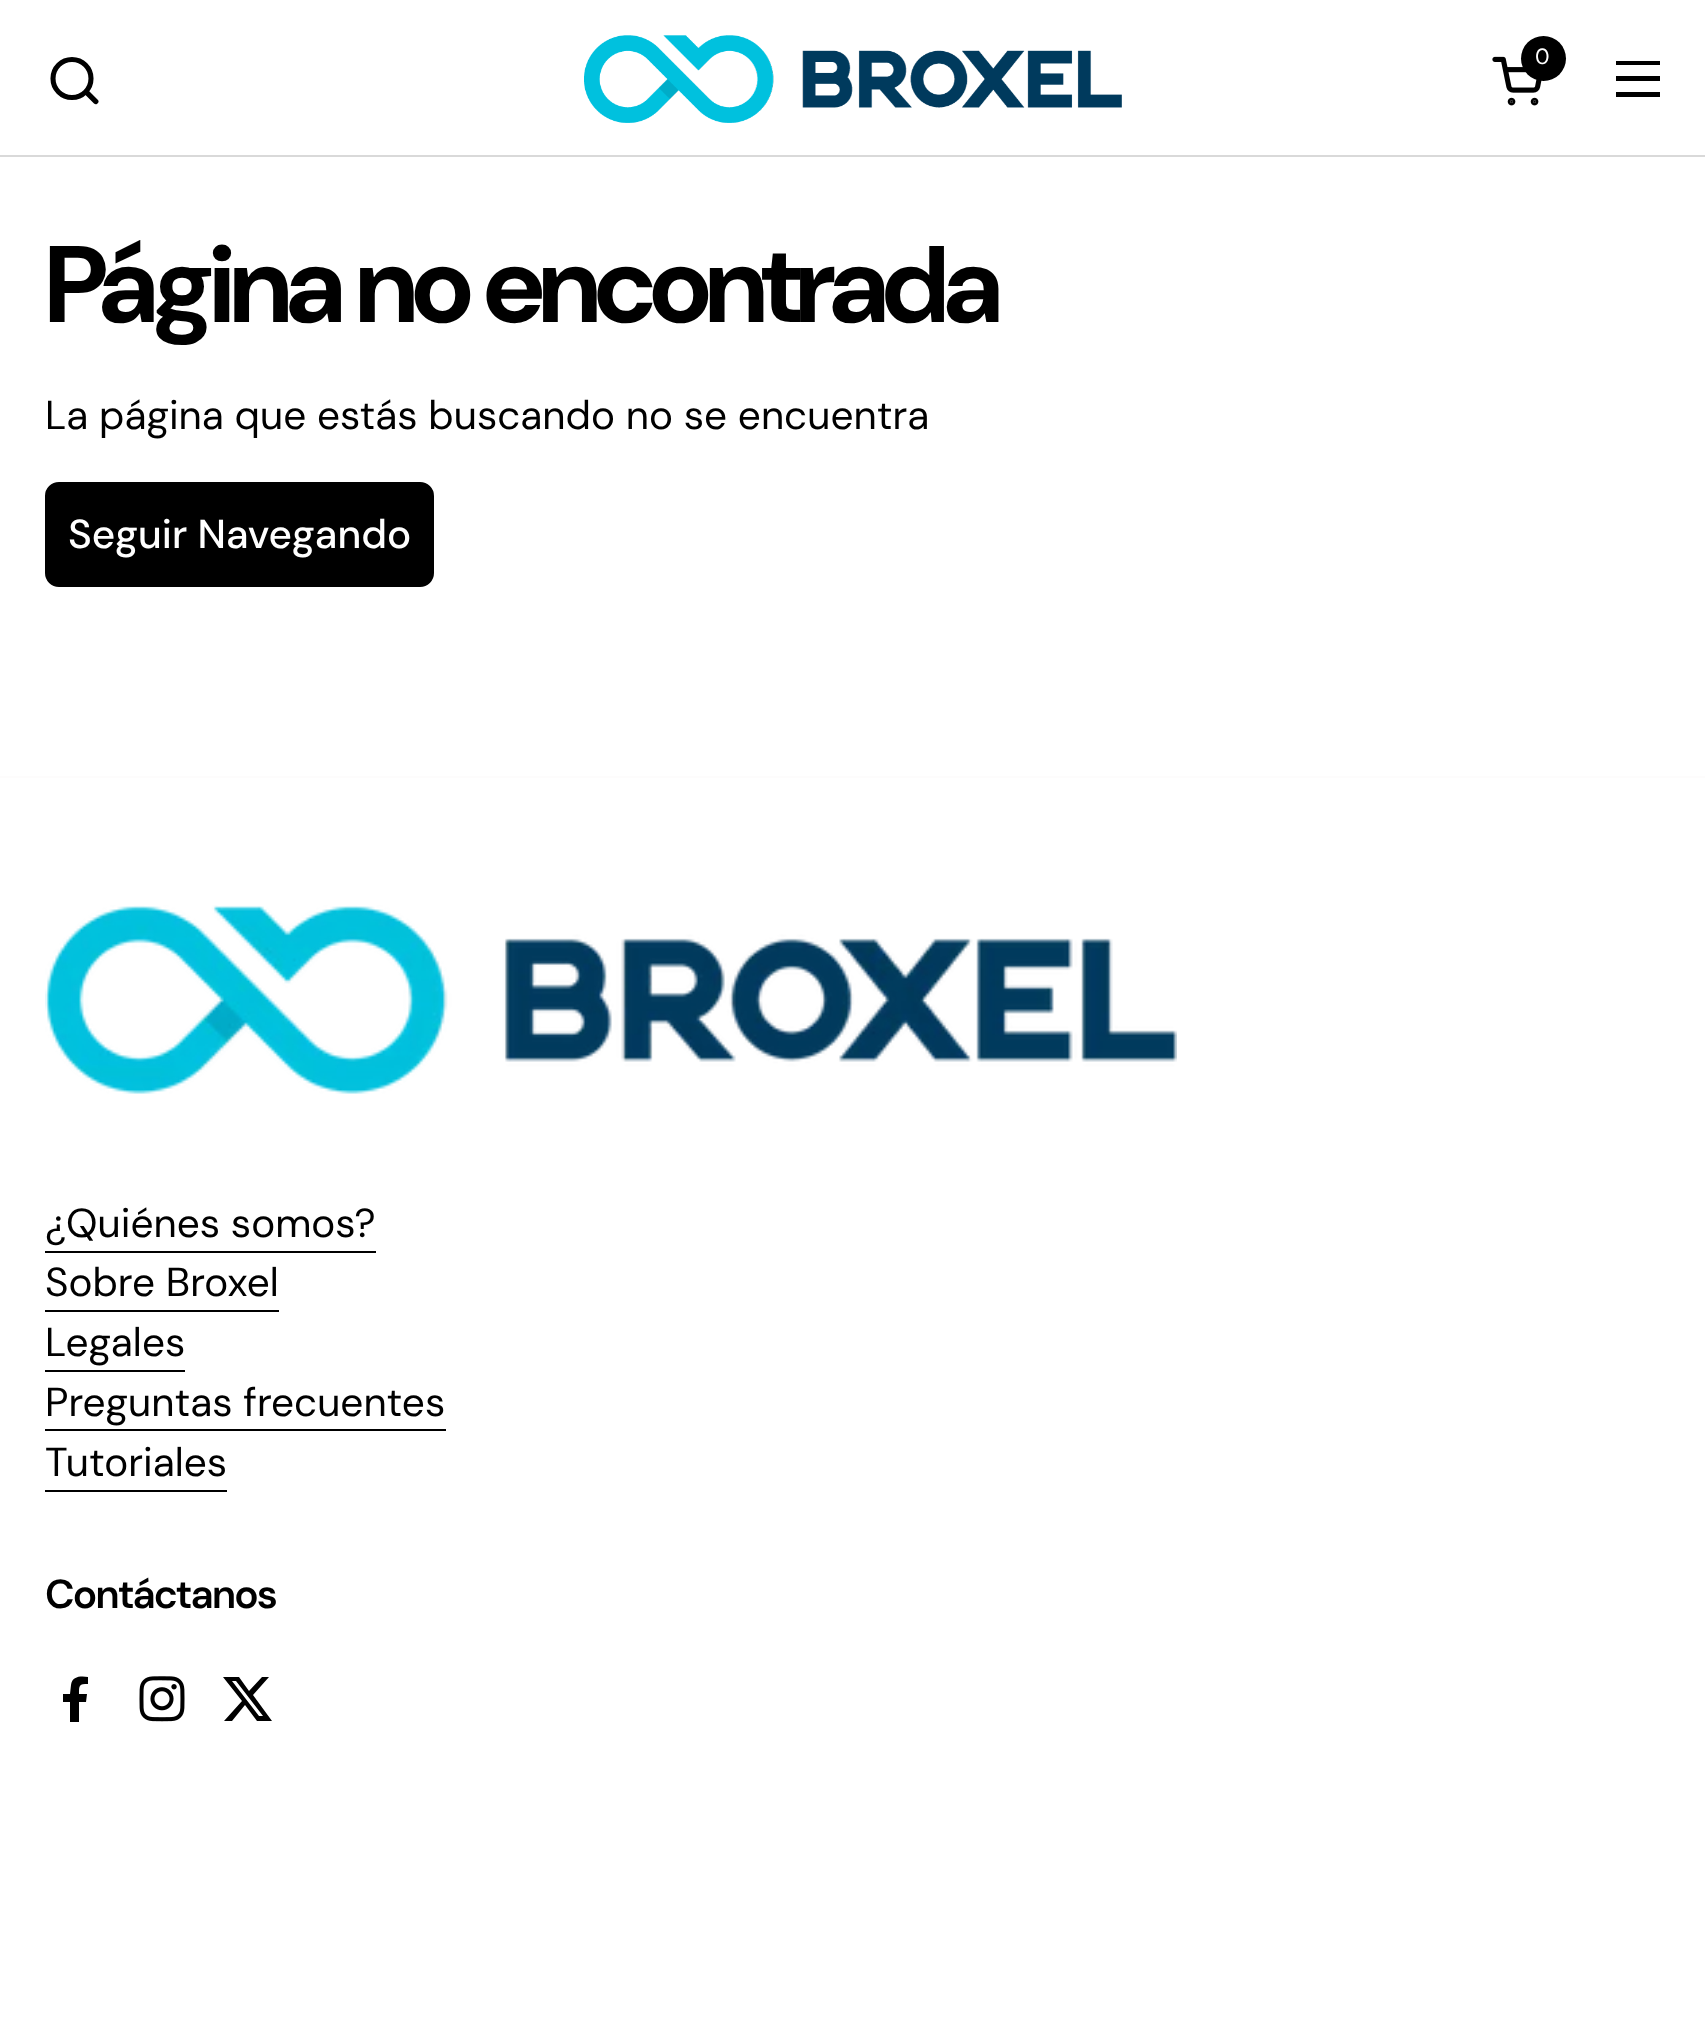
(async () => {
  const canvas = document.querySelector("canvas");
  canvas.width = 1705;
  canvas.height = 2043;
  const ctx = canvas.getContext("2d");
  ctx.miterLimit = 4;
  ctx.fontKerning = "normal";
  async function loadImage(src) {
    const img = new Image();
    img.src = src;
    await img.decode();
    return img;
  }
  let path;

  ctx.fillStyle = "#ffffff";
  ctx.fillRect(0, 0, 1705, 2043);
  ctx.beginPath();
  ctx.arc(72, 78.5, 19, 0, Math.PI * 2);
  ctx.strokeStyle = "#000000";
  ctx.lineWidth = 5.1;
  ctx.stroke();
  ctx.fillStyle = "#000000";
  path = new Path2D("M89 91L87 89L83.5 92.5L85 94.5ZM94 103.5C96.5 106 100 102 98 100ZM85 94.5L94 103.5L98 100L89 91Z");
  ctx.fill(path);
  ctx.drawImage(await loadImage("img/1.png"), 584, 35, 538, 88);
  ctx.beginPath();
  ctx.arc(1543.5, 58.5, 22.5, 0, Math.PI * 2);
  ctx.fill();
  for (const [x, y, w, h, color] of [
    [1616, 61, 44, 4, "#000000"],
    [1616, 76, 44, 5, "#000000"],
    [1616, 92, 44, 5, "#000000"],
    [0, 155, 1705, 2, "#d9d9d9"],
  ]) {
    ctx.fillStyle = color;
    ctx.fillRect(x, y, w, h);
  }
  ctx.fillStyle = "#000000";
  ctx.beginPath();
  ctx.roundRect(46, 483, 387, 103, 13);
  ctx.fill();
  ctx.lineWidth = 2;
  ctx.stroke();
  ctx.fillStyle = "#fdfcfc";
  ctx.fillRect(0, 776, 1705, 2);
  ctx.drawImage(await loadImage("img/3.png"), 45, 905, 1132, 189);
  for (const [x, y, w, h, color] of [
    [45, 1251, 331, 2, "#000000"],
    [45, 1310, 234, 2, "#000000"],
    [45, 1370, 140, 2, "#000000"],
    [45, 1429, 401, 2, "#000000"],
    [45, 1490, 182, 2, "#000000"],
  ]) {
    ctx.fillStyle = color;
    ctx.fillRect(x, y, w, h);
  }
  path = new Path2D("M86 1702L87 1694H79C79 1685 79 1684 88 1684V1677C81 1676 72 1676 71 1685L70 1694H63V1702H70V1722H79V1702Z");
  ctx.fill(path);
  ctx.drawImage(await loadImage("img/4.png"), 139, 1676, 46, 46);
  path = new Path2D("M262 1677H269L253 1695L272 1721H257L245 1705L232 1721H224L242 1701L223 1677H239L249 1691ZM259 1716H263L236 1681H232Z");
  ctx.fill(path);
  ctx.font = "22px 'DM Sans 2'";
  ctx.fillStyle = "#ffffff";
  ctx.fillText("0", 1535, 64);
  ctx.drawImage(await loadImage("img/2.png"), 1492, 56, 50, 50);
  ctx.letterSpacing = "-5.4px";
  ctx.font = "bold 108.75px DM Sans";
  ctx.fillStyle = "#000000";
  ctx.fillText("Página no encontrada", 45, 322);
  ctx.letterSpacing = "0px";
  ctx.font = "40.5px DM Sans";
  ctx.fillText("La página que estás buscando no se encuentra", 45, 429);
  ctx.font = "500 40.5px DM Sans";
  ctx.fillStyle = "#ffffff";
  ctx.fillText("Seguir Navegando", 68, 548);
  ctx.font = "40.5px DM Sans";
  ctx.fillStyle = "#000000";
  for (const [text, x, y] of [
    ["¿Quiénes somos?", 45, 1237],
    ["Sobre Broxel", 45, 1296],
    ["Legales", 45, 1356],
    ["Preguntas frecuentes", 45, 1416],
    ["Tutoriales", 45, 1476],
  ]) {
    ctx.fillText(text, x, y);
  }
  ctx.letterSpacing = "-2px";
  ctx.font = "600 40.5px DM Sans";
  ctx.fillText("Contáctanos", 45, 1608);
})();
